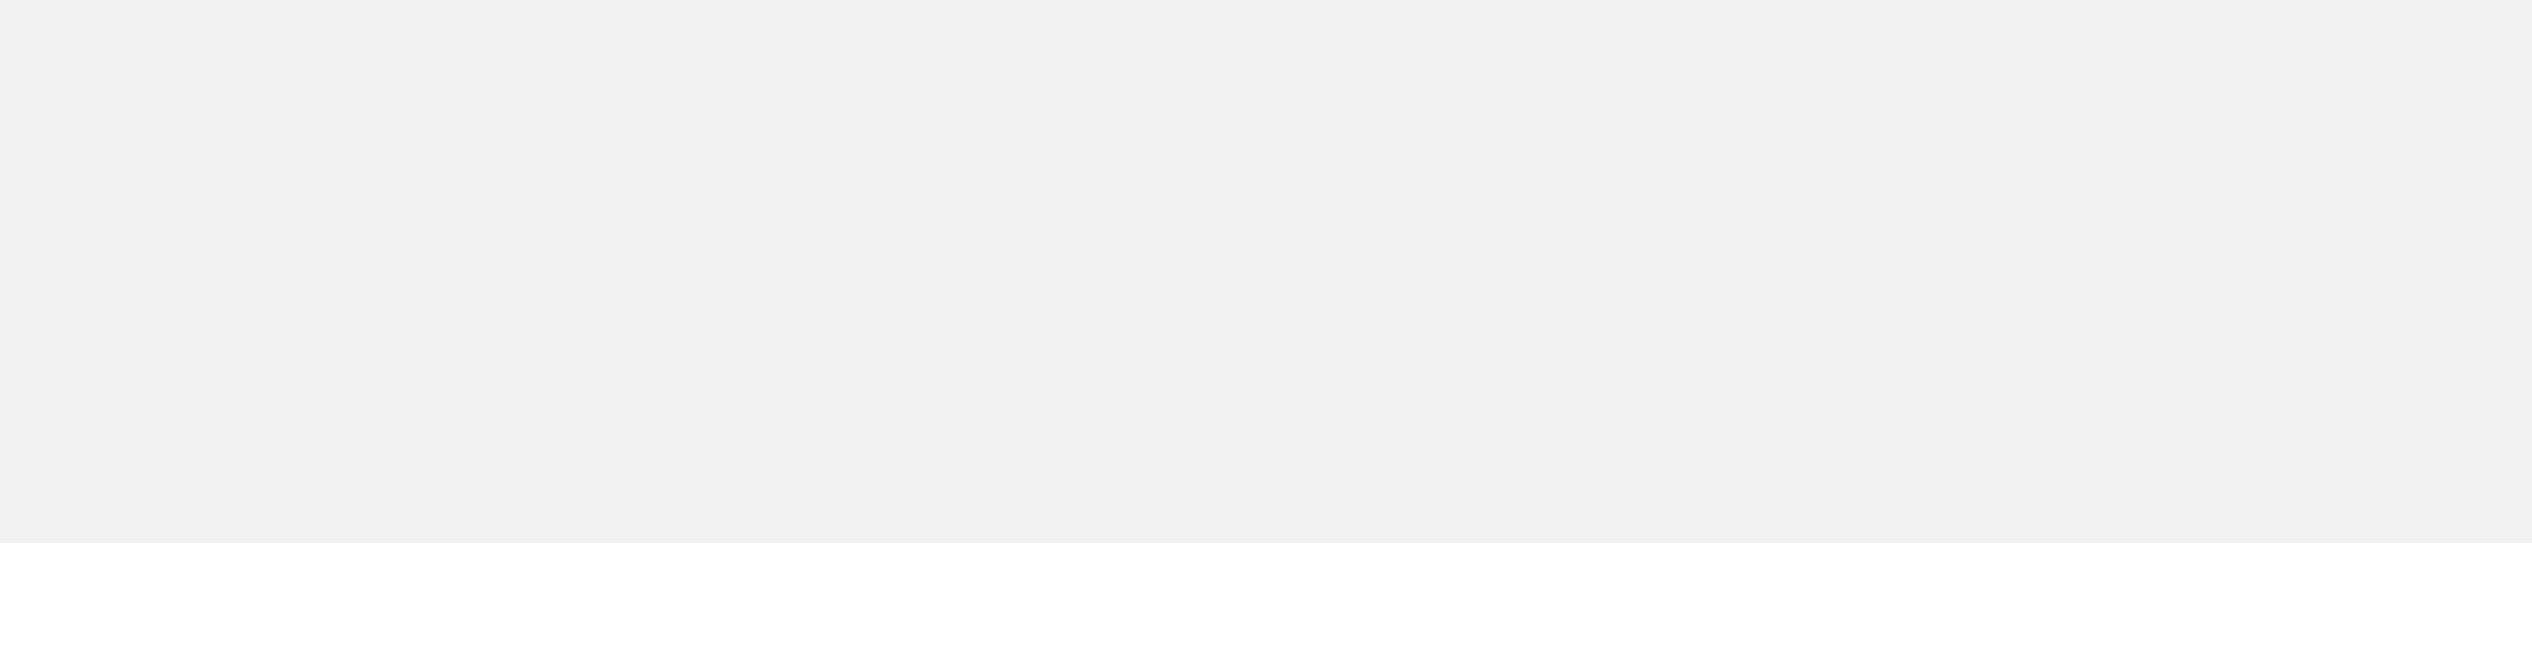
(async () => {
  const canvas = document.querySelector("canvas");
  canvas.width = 2532;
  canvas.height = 650;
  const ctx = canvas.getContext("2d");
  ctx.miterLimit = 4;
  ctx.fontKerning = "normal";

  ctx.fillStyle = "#ffffff";
  ctx.fillRect(0, 0, 2532, 650);
  ctx.fillStyle = "#f2f2f2";
  ctx.fillRect(0, 0, 2532, 543);
})();
